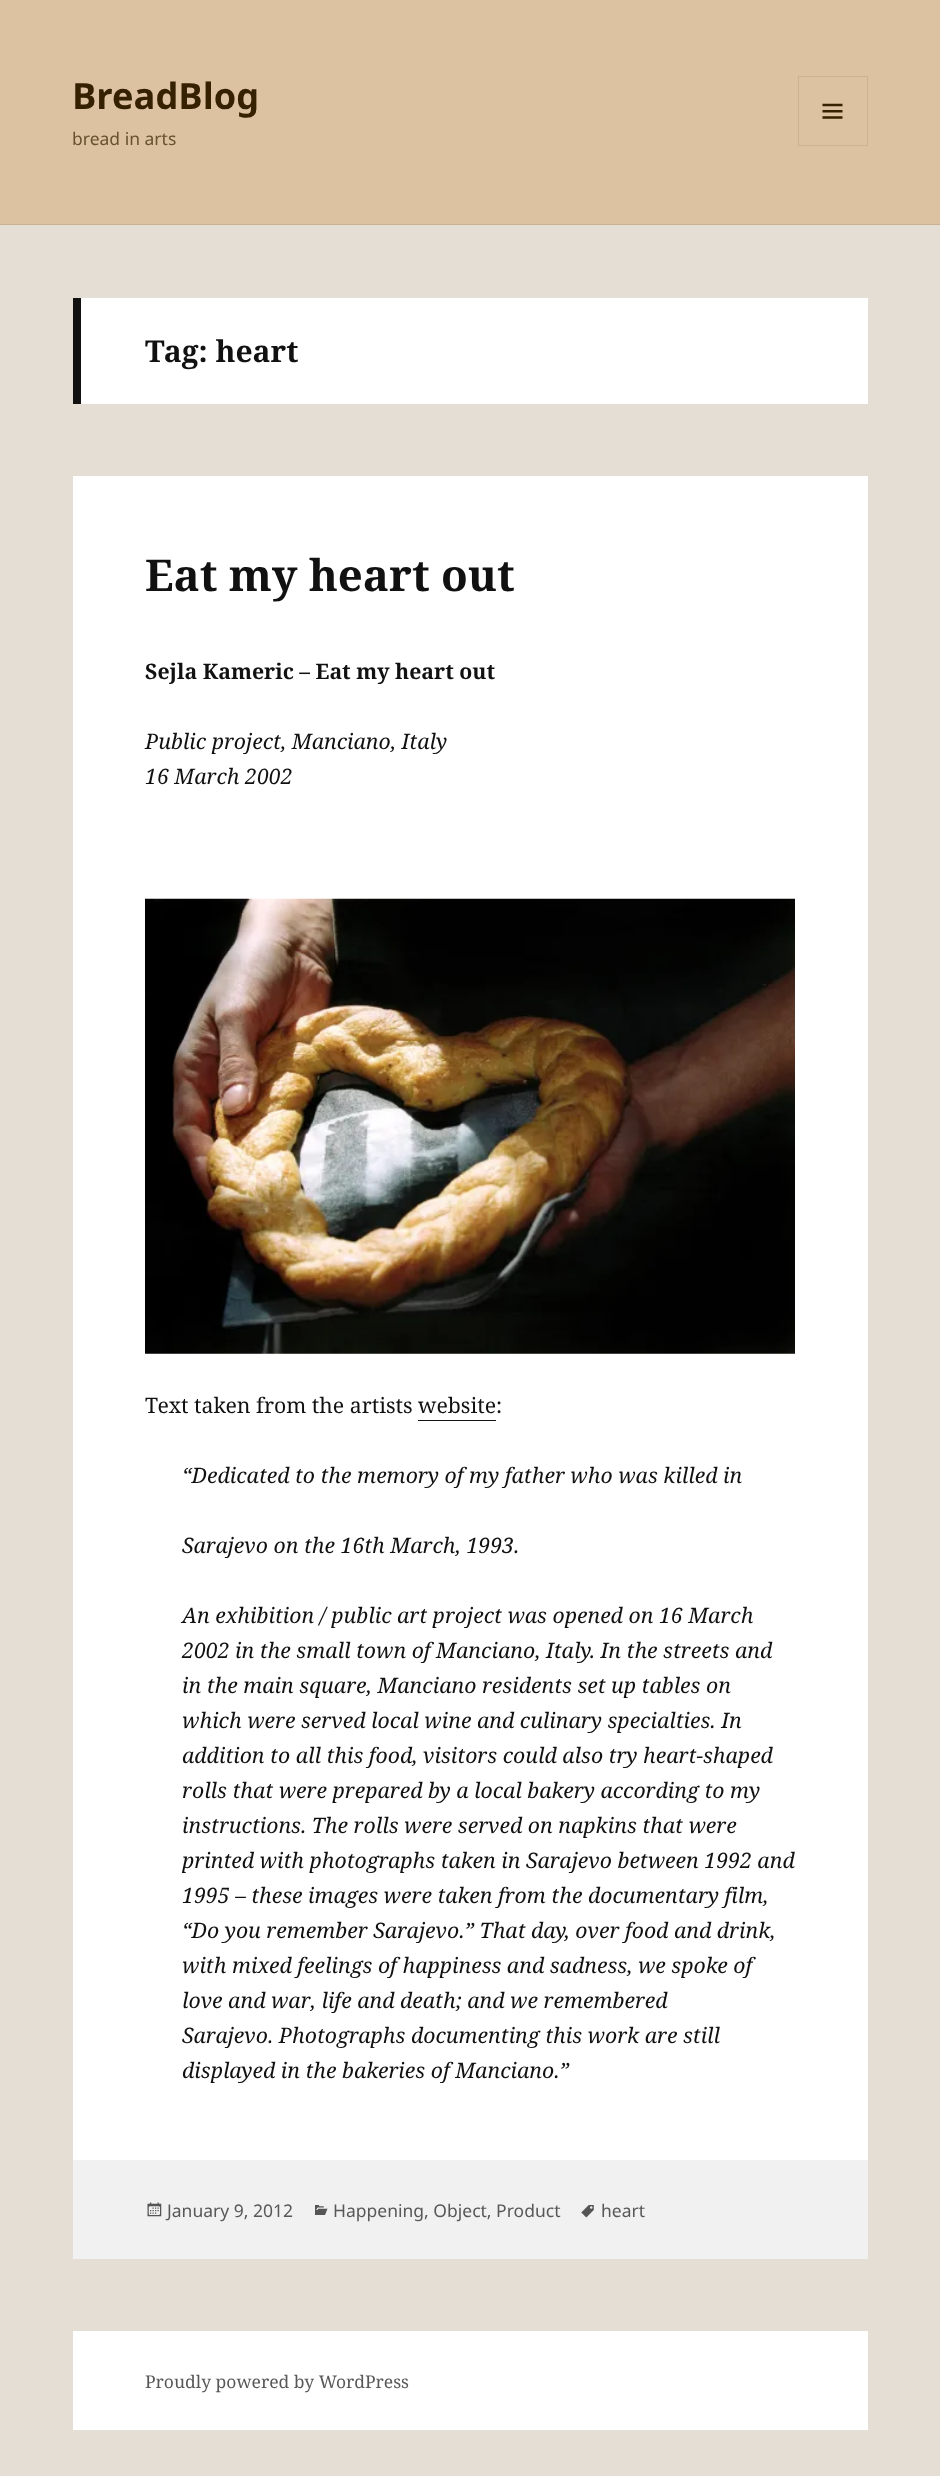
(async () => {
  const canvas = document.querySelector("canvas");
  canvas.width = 940;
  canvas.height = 2476;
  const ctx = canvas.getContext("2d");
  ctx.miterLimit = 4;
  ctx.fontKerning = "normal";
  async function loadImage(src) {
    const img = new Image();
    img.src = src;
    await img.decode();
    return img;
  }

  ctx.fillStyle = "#e5ded5";
  ctx.fillRect(0, 0, 940, 2476);
  ctx.fillStyle = "#ddc2a1";
  ctx.fillRect(0, 0, 940, 224);
  ctx.fillStyle = "#c9b093";
  ctx.fillRect(0, 224, 940, 1);
  ctx.strokeStyle = "#ccb291";
  ctx.strokeRect(798.5, 76.5, 69, 69);
  ctx.drawImage(await loadImage("img/1.png"), 822, 103, 21, 16);
  for (const [x, y, w, h, color] of [
    [81, 298, 787, 106, "#ffffff"],
    [73, 298, 8, 106, "#111111"],
    [73, 476, 795, 1684, "#ffffff"],
  ]) {
    ctx.fillStyle = color;
    ctx.fillRect(x, y, w, h);
  }
  ctx.drawImage(await loadImage("img/2.png"), 145, 898, 650, 456);
  ctx.fillStyle = "#111111";
  ctx.fillRect(418, 1420, 78, 1);
  ctx.fillStyle = "#f1f1f1";
  ctx.fillRect(73, 2160, 795, 99);
  ctx.drawImage(await loadImage("img/3.png"), 147, 2202, 15, 15);
  ctx.drawImage(await loadImage("img/4.png"), 315, 2205, 13, 10);
  ctx.drawImage(await loadImage("img/5.png"), 581, 2205, 13, 13);
  ctx.fillStyle = "#ffffff";
  ctx.fillRect(73, 2331, 795, 99);
  ctx.font = "bold 36.25px Noto Sans";
  ctx.fillStyle = "#352000";
  ctx.fillText("BreadBlog", 72, 109);
  ctx.font = "17.5px Noto Sans";
  ctx.fillStyle = "#675130";
  ctx.fillText("bread in arts", 72, 145);
  ctx.font = "bold 30px Noto Serif";
  ctx.fillStyle = "#111111";
  ctx.fillText("Tag: heart", 145, 362);
  ctx.font = "bold 43.75px Noto Serif";
  ctx.fillText("Eat my heart out", 145, 591);
  ctx.font = "bold 21.25px Noto Serif";
  ctx.fillText("Sejla Kameric – Eat my heart out", 145, 679);
  ctx.font = "italic 21.25px Noto Serif";
  ctx.fillText("Public project, Manciano, Italy", 145, 749);
  ctx.fillText("16 March 2002", 145, 784);
  ctx.font = "21.25px Noto Serif";
  ctx.fillText("Text taken from the artists website:", 145, 1413);
  ctx.font = "italic 21.25px Noto Serif";
  for (const [text, x, y] of [
    ["“Dedicated to the memory of my father who was killed in", 182, 1483],
    ["Sarajevo on the 16th March, 1993.", 182, 1553],
    ["An exhibition / public art project was opened on 16 March", 182, 1623],
    ["2002 in the small town of Manciano, Italy. In the streets and", 182, 1658],
    ["in the main square, Manciano residents set up tables on", 182, 1693],
    ["which were served local wine and culinary specialties. In", 182, 1728],
    ["addition to all this food, visitors could also try heart-shaped", 182, 1763],
    ["rolls that were prepared by a local bakery according to my", 182, 1798],
    ["instructions. The rolls were served on napkins that were", 182, 1833],
    ["printed with photographs taken in Sarajevo between 1992 and", 182, 1868],
    ["1995 – these images were taken from the documentary film,", 182, 1903],
    ["“Do you remember Sarajevo.” That day, over food and drink,", 182, 1938],
    ["with mixed feelings of happiness and sadness, we spoke of", 182, 1973],
    ["love and war, life and death; and we remembered", 182, 2008],
    ["Sarajevo. Photographs documenting this work are still", 182, 2043],
    ["displayed in the bakeries of Manciano.”", 182, 2078],
  ]) {
    ctx.fillText(text, x, y);
  }
  ctx.font = "17.5px Noto Sans";
  ctx.fillStyle = "#585858";
  for (const [text, x, y] of [
    ["January 9, 2012", 167, 2217],
    ["Happening, Object, Product", 333, 2217],
    ["heart", 601, 2217],
  ]) {
    ctx.fillText(text, x, y);
  }
  ctx.font = "17.5px Noto Serif";
  ctx.fillText("Proudly powered by WordPress", 145, 2388);
})();
